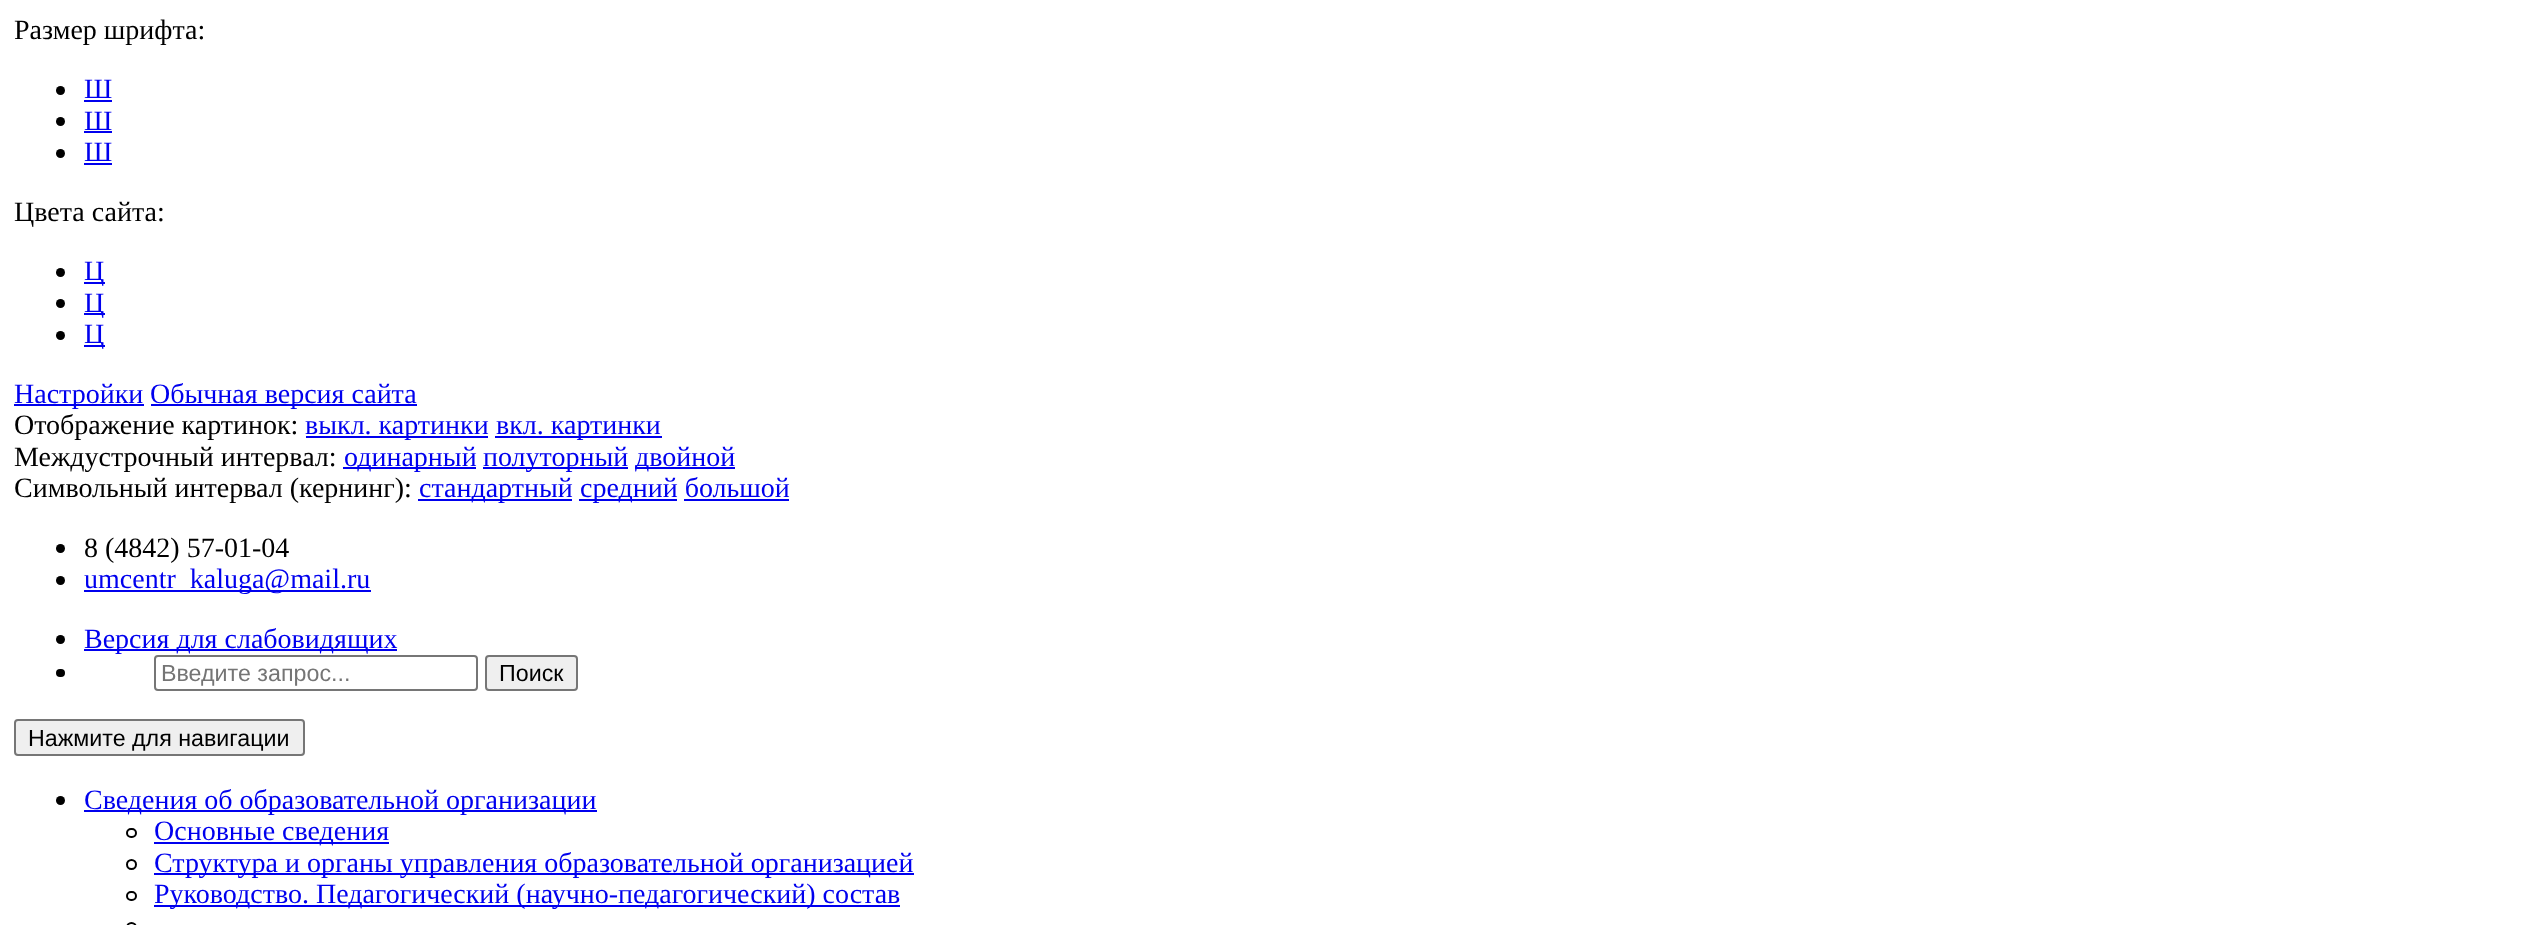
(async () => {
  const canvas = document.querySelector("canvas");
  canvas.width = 2521;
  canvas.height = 925;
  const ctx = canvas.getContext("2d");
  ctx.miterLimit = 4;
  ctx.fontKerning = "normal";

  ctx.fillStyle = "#ffffff";
  ctx.fillRect(0, 0, 2521, 925);
  ctx.fillStyle = "#000000";
  ctx.beginPath();
  ctx.arc(60.5, 90.5, 4.5, 0, Math.PI * 2);
  ctx.fill();
  ctx.fillStyle = "#0000ee";
  ctx.fillRect(84, 100, 28, 2);
  ctx.fillStyle = "#000000";
  ctx.beginPath();
  ctx.arc(60.5, 121.5, 4.5, 0, Math.PI * 2);
  ctx.fill();
  ctx.fillStyle = "#0000ee";
  ctx.fillRect(84, 131, 28, 2);
  ctx.fillStyle = "#000000";
  ctx.beginPath();
  ctx.arc(60.5, 153.5, 4.5, 0, Math.PI * 2);
  ctx.fill();
  ctx.fillStyle = "#0000ee";
  ctx.fillRect(84, 163, 28, 2);
  ctx.fillStyle = "#000000";
  ctx.beginPath();
  ctx.arc(60.5, 272.5, 4.5, 0, Math.PI * 2);
  ctx.fill();
  ctx.fillStyle = "#0000ee";
  ctx.fillRect(84, 282, 21, 2);
  ctx.fillStyle = "#000000";
  ctx.beginPath();
  ctx.arc(60.5, 303.5, 4.5, 0, Math.PI * 2);
  ctx.fill();
  ctx.fillStyle = "#0000ee";
  ctx.fillRect(84, 313, 21, 2);
  ctx.fillStyle = "#000000";
  ctx.beginPath();
  ctx.arc(60.5, 335.5, 4.5, 0, Math.PI * 2);
  ctx.fill();
  for (const [x, y, w, h, color] of [
    [84, 345, 21, 2, "#0000ee"],
    [14, 404, 130, 2, "#0000ee"],
    [151, 404, 266, 2, "#0000ee"],
    [306, 436, 182, 2, "#0000ee"],
    [495, 436, 167, 2, "#0000ee"],
    [343, 467, 133, 2, "#0000ee"],
    [483, 467, 145, 2, "#0000ee"],
    [635, 467, 100, 2, "#0000ee"],
    [418, 499, 154, 2, "#0000ee"],
    [579, 499, 98, 2, "#0000ee"],
    [684, 499, 105, 2, "#0000ee"],
  ]) {
    ctx.fillStyle = color;
    ctx.fillRect(x, y, w, h);
  }
  ctx.fillStyle = "#000000";
  ctx.beginPath();
  ctx.arc(60.5, 548.5, 4.5, 0, Math.PI * 2);
  ctx.fill();
  ctx.beginPath();
  ctx.arc(60.5, 580.5, 4.5, 0, Math.PI * 2);
  ctx.fill();
  ctx.fillStyle = "#0000ee";
  ctx.fillRect(84, 590, 287, 2);
  ctx.fillStyle = "#000000";
  ctx.beginPath();
  ctx.arc(60.5, 639.5, 4.5, 0, Math.PI * 2);
  ctx.fill();
  ctx.fillStyle = "#0000ee";
  ctx.fillRect(84, 649, 313, 2);
  ctx.fillStyle = "#000000";
  ctx.beginPath();
  ctx.roundRect(56, 669, 9, 8, 4);
  ctx.fill();
  ctx.beginPath();
  ctx.roundRect(155, 656, 322, 34, 3);
  ctx.strokeStyle = "#767676";
  ctx.lineWidth = 2;
  ctx.stroke();
  ctx.fillStyle = "#efefef";
  ctx.beginPath();
  ctx.roundRect(486, 656, 91, 34, 3);
  ctx.fill();
  ctx.stroke();
  ctx.beginPath();
  ctx.roundRect(15, 720, 289, 35, 3);
  ctx.fill();
  ctx.stroke();
  ctx.fillStyle = "#000000";
  ctx.beginPath();
  ctx.arc(60.5, 800.5, 4.5, 0, Math.PI * 2);
  ctx.fill();
  ctx.fillStyle = "#0000ee";
  ctx.fillRect(84, 810, 513, 2);
  ctx.beginPath();
  ctx.roundRect(127, 829, 9, 8, 4);
  ctx.strokeStyle = "#000000";
  ctx.stroke();
  ctx.fillRect(154, 842, 235, 2);
  ctx.beginPath();
  ctx.arc(131.5, 864.5, 4.5, 0, Math.PI * 2);
  ctx.stroke();
  ctx.fillRect(154, 873, 760, 2);
  ctx.beginPath();
  ctx.roundRect(127, 892, 9, 8, 4);
  ctx.stroke();
  ctx.fillRect(154, 905, 746, 2);
  ctx.beginPath();
  ctx.arc(131.5, 927.5, 4.5, 0, Math.PI * 2);
  ctx.stroke();
  ctx.font = "28px Liberation Serif";
  ctx.fillStyle = "#000000";
  ctx.fillText("Размер шрифта:", 14, 39);
  ctx.fillStyle = "#0000ee";
  for (const [text, x, y] of [
    ["Ш", 84, 98],
    ["Ш", 84, 130],
    ["Ш", 84, 161],
  ]) {
    ctx.fillText(text, x, y);
  }
  ctx.fillStyle = "#000000";
  ctx.fillText("Цвета сайта:", 14, 221);
  ctx.fillStyle = "#0000ee";
  for (const [text, x, y] of [
    ["Ц", 84, 280],
    ["Ц", 84, 312],
    ["Ц", 84, 343],
    ["Настройки", 14, 403],
    ["Обычная версия сайта", 150, 403],
  ]) {
    ctx.fillText(text, x, y);
  }
  ctx.fillStyle = "#000000";
  ctx.fillText("Отображение картинок:", 14, 434);
  ctx.fillStyle = "#0000ee";
  ctx.fillText("выкл. картинки", 305, 434);
  ctx.fillText("вкл. картинки", 496, 434);
  ctx.fillStyle = "#000000";
  ctx.fillText("Междустрочный интервал:", 14, 466);
  ctx.fillStyle = "#0000ee";
  for (const [text, x, y] of [
    ["одинарный", 344, 466],
    ["полуторный", 483, 466],
    ["двойной", 635, 466],
  ]) {
    ctx.fillText(text, x, y);
  }
  ctx.fillStyle = "#000000";
  ctx.fillText("Символьный интервал (кернинг):", 14, 497);
  ctx.fillStyle = "#0000ee";
  ctx.fillText("стандартный", 419, 497);
  ctx.fillText("средний большой", 580, 497);
  ctx.fillStyle = "#000000";
  ctx.fillText("8 (4842) 57-01-04", 84, 557);
  ctx.fillStyle = "#0000ee";
  ctx.fillText("umcentr_kaluga@mail.ru", 84, 588);
  ctx.fillText("Версия для слабовидящих", 84, 648);
  ctx.font = "23.25px Liberation Sans";
  ctx.fillStyle = "#757575";
  ctx.fillText("Введите запрос...", 161, 681);
  ctx.fillStyle = "#000000";
  ctx.fillText("Поиск", 499, 681);
  ctx.fillText("Нажмите для навигации", 28, 746);
  ctx.font = "28px Liberation Serif";
  ctx.fillStyle = "#0000ee";
  for (const [text, x, y] of [
    ["Сведения об образовательной организации", 84, 809],
    ["Основные сведения", 154, 840],
    ["Структура и органы управления образовательной организацией", 154, 872],
    ["Руководство. Педагогический (научно-педагогический) состав", 154, 903],
  ]) {
    ctx.fillText(text, x, y);
  }
})();
